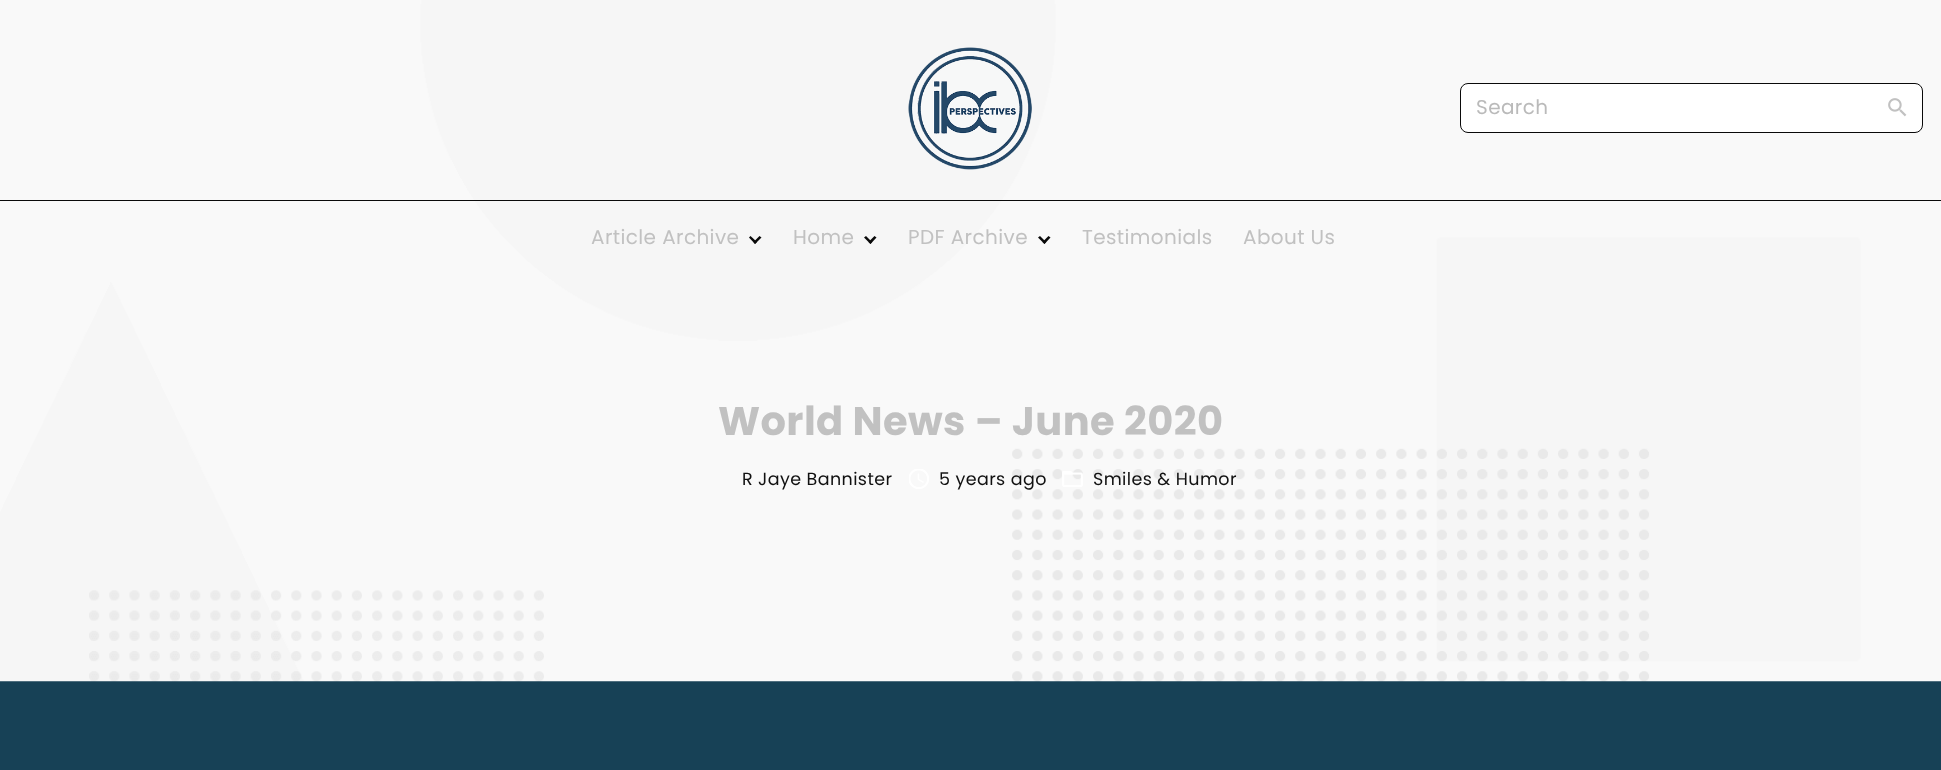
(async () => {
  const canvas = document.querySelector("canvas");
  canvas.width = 1941;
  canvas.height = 770;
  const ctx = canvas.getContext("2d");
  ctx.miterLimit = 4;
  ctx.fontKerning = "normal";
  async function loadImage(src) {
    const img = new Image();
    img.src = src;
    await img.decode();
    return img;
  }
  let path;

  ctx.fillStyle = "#174156";
  ctx.fillRect(0, 0, 1941, 770);
  ctx.drawImage(await loadImage("img/1.png"), 0, 0, 1941, 682);
  ctx.drawImage(await loadImage("img/2.png"), 908, 47, 124, 123);
  ctx.fillStyle = "#ffffff";
  ctx.beginPath();
  ctx.roundRect(1460.5, 83.5, 462, 49, 7.5);
  ctx.fill();
  ctx.strokeStyle = "#0a0a0a";
  ctx.stroke();
  ctx.drawImage(await loadImage("img/3.png"), 1888, 98, 19, 19);
  ctx.fillStyle = "#0a0a0a";
  ctx.fillRect(0, 200, 1941, 1);
  path = new Path2D("M761.5 237.5L755 244L753.5 242L759.5 236Z");
  ctx.fill(path);
  path = new Path2D("M757 242L755 244L749 237.5L750.5 236Z");
  ctx.fill(path);
  path = new Path2D("M876.5 237.5L870.5 244L868.5 242L874.5 236Z");
  ctx.fill(path);
  path = new Path2D("M872 242L870.5 244L864 237.5L866 236Z");
  ctx.fill(path);
  path = new Path2D("M1050.5 237.5L1044.5 244L1042.5 242L1048.5 236Z");
  ctx.fill(path);
  path = new Path2D("M1046 242L1044.5 244L1038 237.5L1040 236Z");
  ctx.fill(path);
  ctx.drawImage(await loadImage("img/4.png"), 909, 469, 20, 20);
  ctx.drawImage(await loadImage("img/5.png"), 1062, 471, 21, 16);
  ctx.letterSpacing = "0.4px";
  ctx.font = "20px Poppins";
  ctx.fillStyle = "#bababa";
  ctx.fillText("Search", 1476, 114);
  ctx.fillStyle = "#c1c1c1";
  for (const [text, x, y] of [
    ["Article Archive", 591, 244],
    ["Home", 793, 244],
    ["PDF Archive", 908, 244],
    ["Testimonials", 1082, 244],
    ["About Us", 1243, 244],
  ]) {
    ctx.fillText(text, x, y);
  }
  ctx.font = "bold 40px Poppins";
  ctx.fillText("World News – June 2020", 718, 435);
  ctx.font = "17.5px Poppins";
  ctx.fillStyle = "#111111";
  for (const [text, x, y] of [
    ["R Jaye Bannister", 742, 485],
    ["5 years ago", 939, 485],
    ["Smiles & Humor", 1093, 485],
  ]) {
    ctx.fillText(text, x, y);
  }
})();
